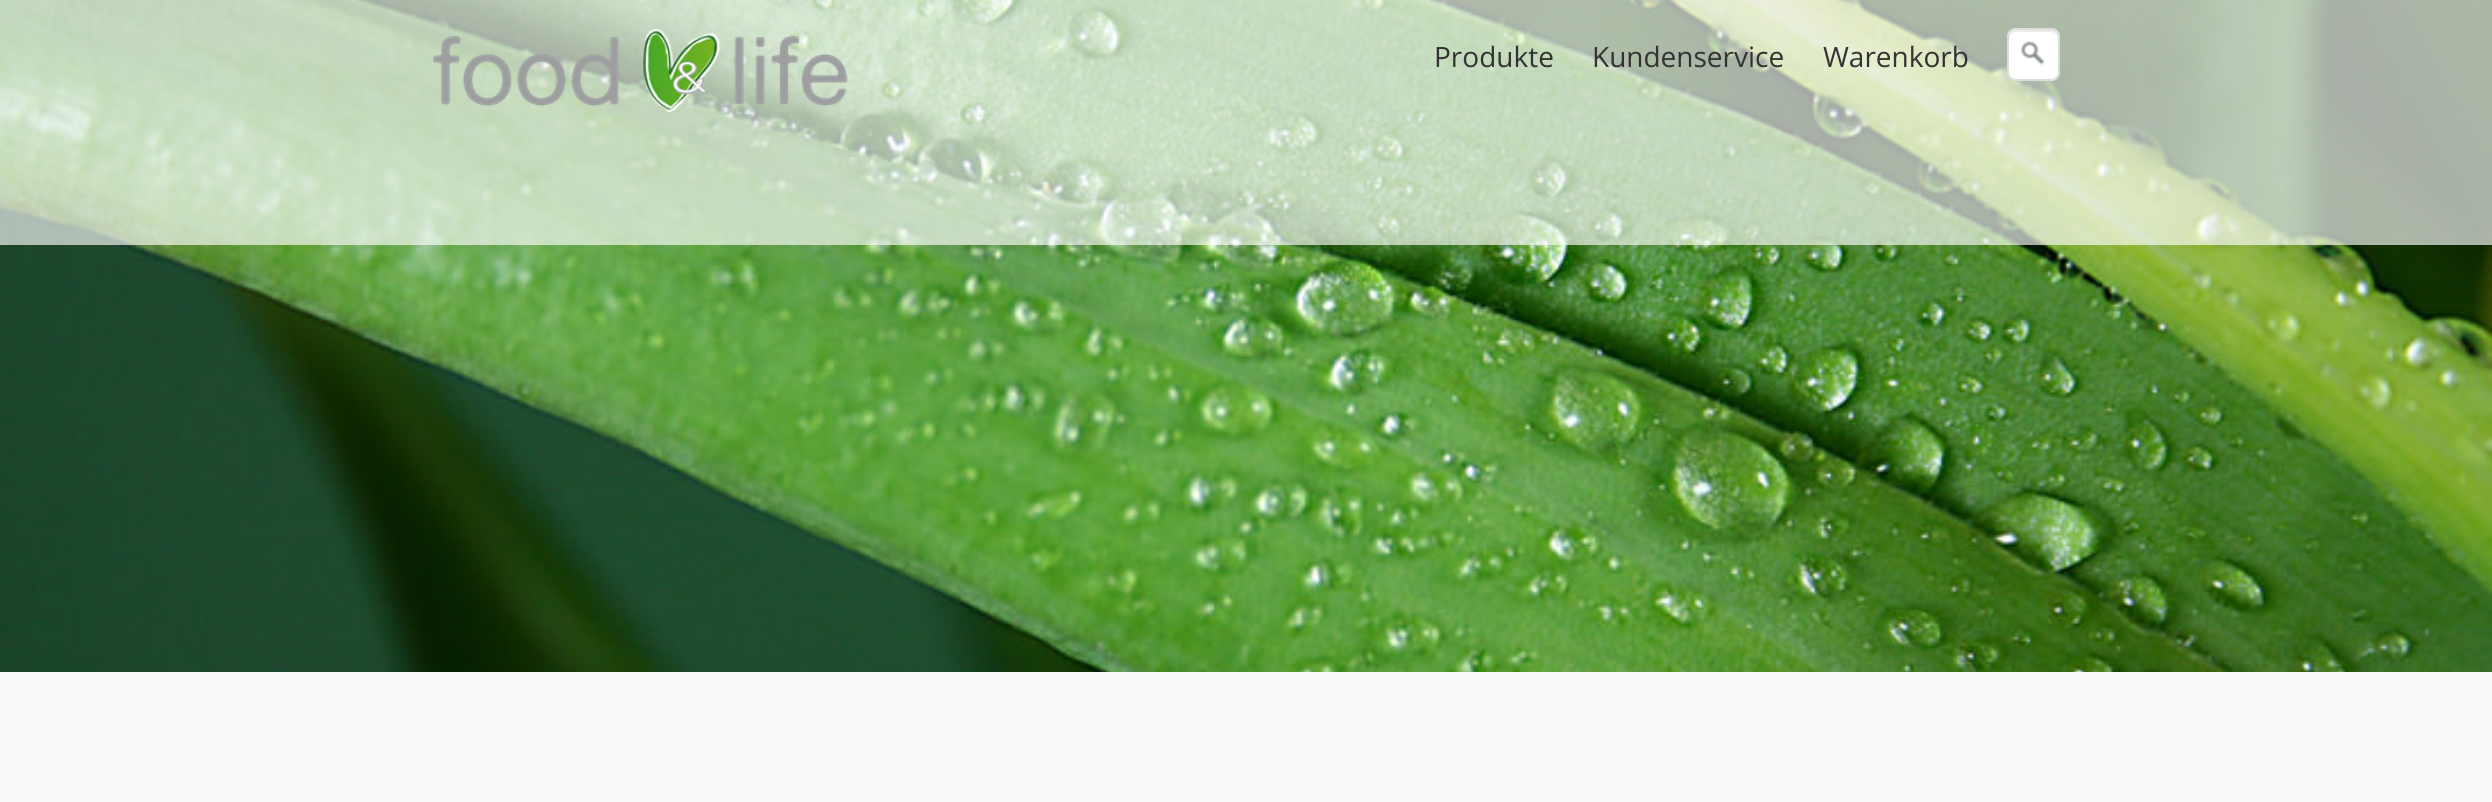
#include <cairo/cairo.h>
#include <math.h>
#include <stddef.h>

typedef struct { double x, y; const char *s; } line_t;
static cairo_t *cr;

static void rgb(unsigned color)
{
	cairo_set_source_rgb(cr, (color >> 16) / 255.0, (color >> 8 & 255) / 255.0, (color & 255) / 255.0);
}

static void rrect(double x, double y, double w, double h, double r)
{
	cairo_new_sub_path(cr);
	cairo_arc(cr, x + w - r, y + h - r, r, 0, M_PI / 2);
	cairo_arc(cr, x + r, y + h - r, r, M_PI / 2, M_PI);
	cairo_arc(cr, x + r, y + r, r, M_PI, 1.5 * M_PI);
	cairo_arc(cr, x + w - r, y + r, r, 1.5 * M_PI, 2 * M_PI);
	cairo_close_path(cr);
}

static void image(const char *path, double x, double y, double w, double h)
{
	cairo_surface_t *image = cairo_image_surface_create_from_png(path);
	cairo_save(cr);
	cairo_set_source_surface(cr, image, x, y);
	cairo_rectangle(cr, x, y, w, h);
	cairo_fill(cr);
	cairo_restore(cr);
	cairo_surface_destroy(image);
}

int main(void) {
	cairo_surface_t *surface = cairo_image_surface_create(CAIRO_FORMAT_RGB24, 2492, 802);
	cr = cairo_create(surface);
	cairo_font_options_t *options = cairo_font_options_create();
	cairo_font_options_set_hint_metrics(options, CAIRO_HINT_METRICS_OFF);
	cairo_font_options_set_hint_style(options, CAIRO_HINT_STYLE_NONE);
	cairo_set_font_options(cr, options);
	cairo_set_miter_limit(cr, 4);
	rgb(0xfafafa);
	cairo_paint(cr);
	image("img/1.png", 0, 0, 2492, 672);
	cairo_set_source_rgba(cr, 1, 1, 1, 0.65);
	cairo_rectangle(cr, 0, 0, 2492, 245);
	cairo_fill(cr);
	image("img/2.png", 433, 28, 415, 85);
	rgb(0xffffff);
	rrect(2007, 28, 53, 53, 9);
	cairo_fill(cr);
	rgb(0xececec);
	cairo_new_path(cr);
	cairo_move_to(cr, 2016, 32);
	cairo_line_to(cr, 2051, 32);
	cairo_curve_to(cr, 2055, 32, 2058, 35, 2058, 38);
	cairo_curve_to(cr, 2058, 30, 2052, 30, 2045, 30);
	cairo_line_to(cr, 2022, 30);
	cairo_curve_to(cr, 2015, 30, 2009, 30, 2009, 38);
	cairo_curve_to(cr, 2009, 35, 2012, 32, 2016, 32);
	cairo_close_path(cr);
	cairo_fill(cr);
	rrect(2008, 29, 51, 51, 8);
	rgb(0xdddddd);
	cairo_stroke(cr);
	image("img/3.png", 2021, 41, 24, 25);
	cairo_select_font_face(cr, "Open Sans", CAIRO_FONT_SLANT_NORMAL, CAIRO_FONT_WEIGHT_NORMAL);
	cairo_set_font_size(cr, 28);
	rgb(0x333333);
	{
		static const line_t items[] = {
			{1434, 67, "Produkte"},
			{1592, 67, "Kundenservice"},
			{1823, 67, "Warenkorb"},
		};
		for (size_t i = 0; i < sizeof items / sizeof *items; i++) {
			cairo_move_to(cr, items[i].x, items[i].y);
			cairo_show_text(cr, items[i].s);
		}
	}
	cairo_surface_write_to_png(surface, "page.png");
	cairo_font_options_destroy(options);
	cairo_destroy(cr);
	cairo_surface_destroy(surface);
	return 0;
}
